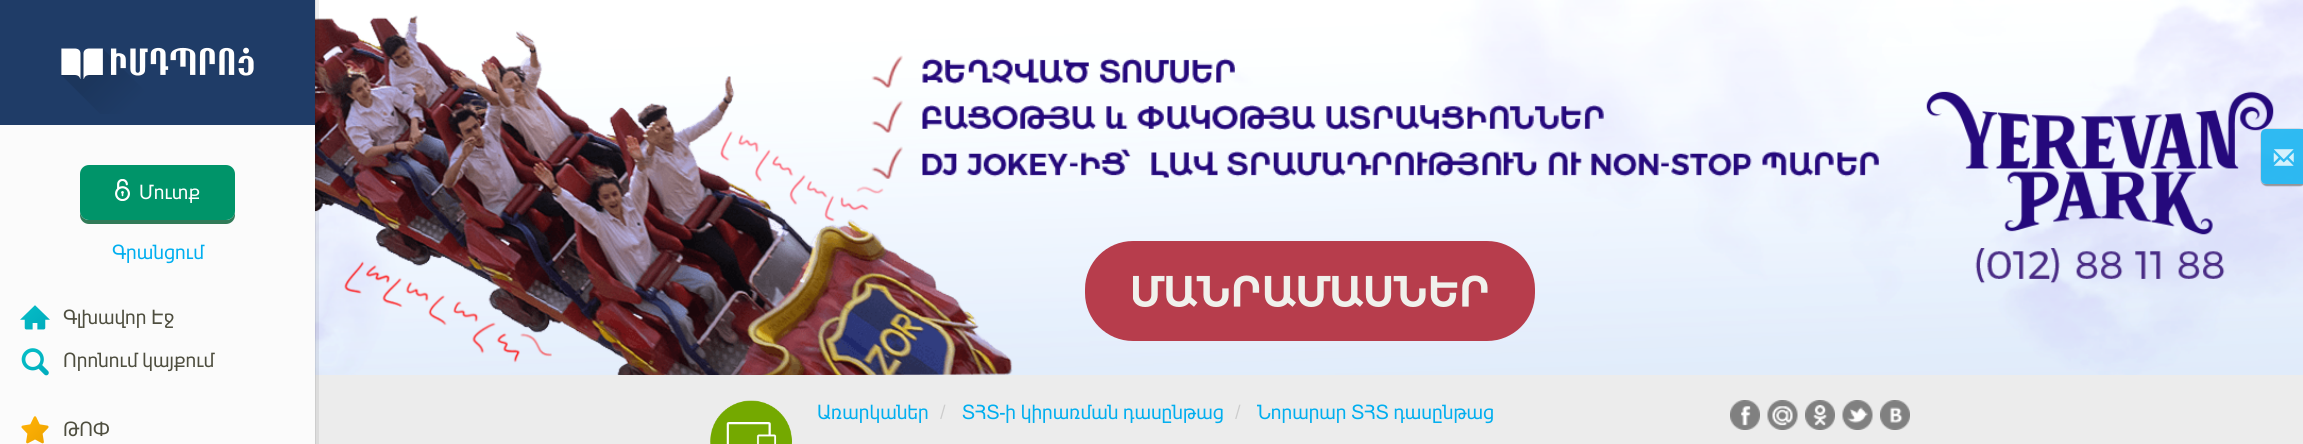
#include <cairo/cairo.h>
#include <math.h>
#include <stddef.h>

typedef struct { double x, y; const char *s; } line_t;
static cairo_t *cr;

static void rgb(unsigned color)
{
	cairo_set_source_rgb(cr, (color >> 16) / 255.0, (color >> 8 & 255) / 255.0, (color & 255) / 255.0);
}

static void rrect(double x, double y, double w, double h, double r)
{
	cairo_new_sub_path(cr);
	cairo_arc(cr, x + w - r, y + h - r, r, 0, M_PI / 2);
	cairo_arc(cr, x + r, y + h - r, r, M_PI / 2, M_PI);
	cairo_arc(cr, x + r, y + r, r, M_PI, 1.5 * M_PI);
	cairo_arc(cr, x + w - r, y + r, r, 1.5 * M_PI, 2 * M_PI);
	cairo_close_path(cr);
}

static void soft_shadow(double x, double y, double w, double h, double r, double blur, double alpha)
{
	cairo_push_group_with_content(cr, CAIRO_CONTENT_ALPHA);
	cairo_set_operator(cr, CAIRO_OPERATOR_SOURCE);
	for (int i = 15; i >= -15 && fmin(w, h) + blur * i / 3 > 0; i -= 2) {
		double e = blur * i / 6;
		cairo_set_source_rgba(cr, 0, 0, 0, alpha * erfc((i - 1) / 8.5) / 2);
		rrect(x - e, y - e, w + 2 * e, h + 2 * e, fmax(0, fmin(r + e + blur * .6, fmin(w, h) / 2 + e)));
		cairo_fill(cr);
	}
	cairo_pattern_t *soft = cairo_pop_group(cr);
	cairo_mask(cr, soft);
	cairo_pattern_destroy(soft);
}

static void image(const char *path, double x, double y, double w, double h)
{
	cairo_surface_t *image = cairo_image_surface_create_from_png(path);
	cairo_save(cr);
	cairo_set_source_surface(cr, image, x, y);
	cairo_rectangle(cr, x, y, w, h);
	cairo_fill(cr);
	cairo_restore(cr);
	cairo_surface_destroy(image);
}

int main(void) {
	cairo_surface_t *surface = cairo_image_surface_create(CAIRO_FORMAT_RGB24, 2303, 444);
	cr = cairo_create(surface);
	cairo_font_options_t *options = cairo_font_options_create();
	cairo_font_options_set_hint_metrics(options, CAIRO_HINT_METRICS_OFF);
	cairo_font_options_set_hint_style(options, CAIRO_HINT_STYLE_NONE);
	cairo_set_font_options(cr, options);
	cairo_set_miter_limit(cr, 4);
	rgb(0xececec);
	cairo_paint(cr);
	image("img/6.png", 315, 0, 1988, 375);
	image("img/12.png", 871, 100, 32, 33);
	image("img/14.png", 871, 146, 32, 33);
	image("img/8.png", 720, 131, 164, 91);
	image("img/9.png", 344, 261, 208, 102);
	image("img/10.png", 871, 55, 32, 33);
	image("img/11.png", 922, 58, 313, 27);
	image("img/13.png", 922, 105, 682, 25);
	image("img/15.png", 922, 148, 957, 30);
	image("img/7.png", 315, 15, 698, 360);
	cairo_set_source_rgba(cr, 0, 0, 0, 0.07);
	cairo_rectangle(cr, 315, 0, 4, 444);
	cairo_fill(cr);
	cairo_rectangle(cr, 315, 0, 1, 444);
	cairo_fill(cr);
	rgb(0xfbfbfb);
	cairo_rectangle(cr, 0, 125, 315, 319);
	cairo_fill(cr);
	rgb(0x1f3c67);
	cairo_rectangle(cr, 0, 0, 315, 125);
	cairo_fill(cr);
	image("img/1.png", 61, 47, 193, 67);
	rgb(0x317a58);
	cairo_new_path(cr);
	cairo_move_to(cr, 80, 211);
	cairo_line_to(cr, 80, 215);
	cairo_curve_to(cr, 80, 220, 84, 224, 89, 224);
	cairo_line_to(cr, 226, 224);
	cairo_curve_to(cr, 231, 224, 235, 220, 235, 215);
	cairo_line_to(cr, 235, 211);
	cairo_curve_to(cr, 235, 216, 231, 220, 226, 220);
	cairo_line_to(cr, 89, 220);
	cairo_curve_to(cr, 84, 220, 80, 216, 80, 211);
	cairo_close_path(cr);
	cairo_fill(cr);
	rgb(0x009469);
	rrect(80, 165, 155, 55, 9);
	cairo_fill(cr);
	image("img/2.png", 115, 179, 15, 22);
	image("img/3.png", 20, 305, 30, 25);
	image("img/4.png", 21, 348, 28, 28);
	image("img/5.png", 21, 416, 28, 28);
	image("img/16.png", 1926, 91, 348, 144);
	image("img/17.png", 1975, 248, 250, 36);
	rgb(0xb73d4c);
	rrect(1085, 241, 450, 100, 48);
	cairo_fill(cr);
	image("img/18.png", 1133, 275, 355, 32);
	cairo_save(cr);
	cairo_set_fill_rule(cr, CAIRO_FILL_RULE_EVEN_ODD);
	cairo_new_path(cr);
	cairo_move_to(cr, 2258, 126);
	cairo_line_to(cr, 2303, 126);
	cairo_line_to(cr, 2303, 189);
	cairo_line_to(cr, 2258, 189);
	cairo_close_path(cr);
	cairo_move_to(cr, 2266, 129);
	cairo_line_to(cr, 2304, 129);
	cairo_line_to(cr, 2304, 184);
	cairo_line_to(cr, 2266, 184);
	cairo_curve_to(cr, 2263, 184, 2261, 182, 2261, 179);
	cairo_line_to(cr, 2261, 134);
	cairo_curve_to(cr, 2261, 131, 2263, 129, 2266, 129);
	cairo_close_path(cr);
	cairo_clip(cr);
	rgb(0x808080);
	soft_shadow(2261, 129, 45, 57, 6, 0.5, 0.8);
	cairo_restore(cr);
	cairo_set_source_rgba(cr, 0, 0.682, 0.937, 0.8);
	cairo_new_path(cr);
	cairo_move_to(cr, 2266, 129);
	cairo_line_to(cr, 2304, 129);
	cairo_line_to(cr, 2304, 184);
	cairo_line_to(cr, 2266, 184);
	cairo_curve_to(cr, 2263, 184, 2261, 182, 2261, 179);
	cairo_line_to(cr, 2261, 134);
	cairo_curve_to(cr, 2261, 131, 2263, 129, 2266, 129);
	cairo_close_path(cr);
	cairo_fill(cr);
	image("img/19.png", 2273, 149, 21, 17);
	image("img/20.png", 710, 400, 82, 44);
	image("img/21.png", 1730, 400, 30, 30);
	image("img/22.png", 1767, 400, 31, 30);
	image("img/23.png", 1805, 400, 30, 30);
	image("img/24.png", 1842, 400, 31, 30);
	image("img/25.png", 1880, 400, 30, 30);
	cairo_select_font_face(cr, "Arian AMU", CAIRO_FONT_SLANT_NORMAL, CAIRO_FONT_WEIGHT_NORMAL);
	cairo_set_font_size(cr, 20);
	rgb(0xffffff);
	cairo_move_to(cr, 139, 199);
	cairo_show_text(cr, "Մուտք");
	rgb(0x00aeef);
	cairo_move_to(cr, 112, 259);
	cairo_show_text(cr, "Գրանցում");
	rgb(0x4e4e3f);
	{
		static const line_t items[] = {
			{63, 324, "Գլխավոր Էջ"},
			{63, 367, "Որոնում կայքում"},
			{63, 436, "ԹՈՓ"},
		};
		for (size_t i = 0; i < sizeof items / sizeof *items; i++) {
			cairo_move_to(cr, items[i].x, items[i].y);
			cairo_show_text(cr, items[i].s);
		}
	}
	rgb(0x00aeef);
	cairo_move_to(cr, 817, 419);
	cairo_show_text(cr, "Առարկաներ");
	rgb(0xcccccc);
	cairo_move_to(cr, 940, 419);
	cairo_show_text(cr, "/");
	rgb(0x00aeef);
	cairo_move_to(cr, 962, 419);
	cairo_show_text(cr, "ՏՀՏ-ի կիրառման դասընթաց");
	rgb(0xcccccc);
	cairo_move_to(cr, 1235, 419);
	cairo_show_text(cr, "/");
	rgb(0x00aeef);
	cairo_move_to(cr, 1257, 419);
	cairo_show_text(cr, "Նորարար ՏՀՏ դասընթաց");
	cairo_surface_write_to_png(surface, "page.png");
	cairo_font_options_destroy(options);
	cairo_destroy(cr);
	cairo_surface_destroy(surface);
	return 0;
}
